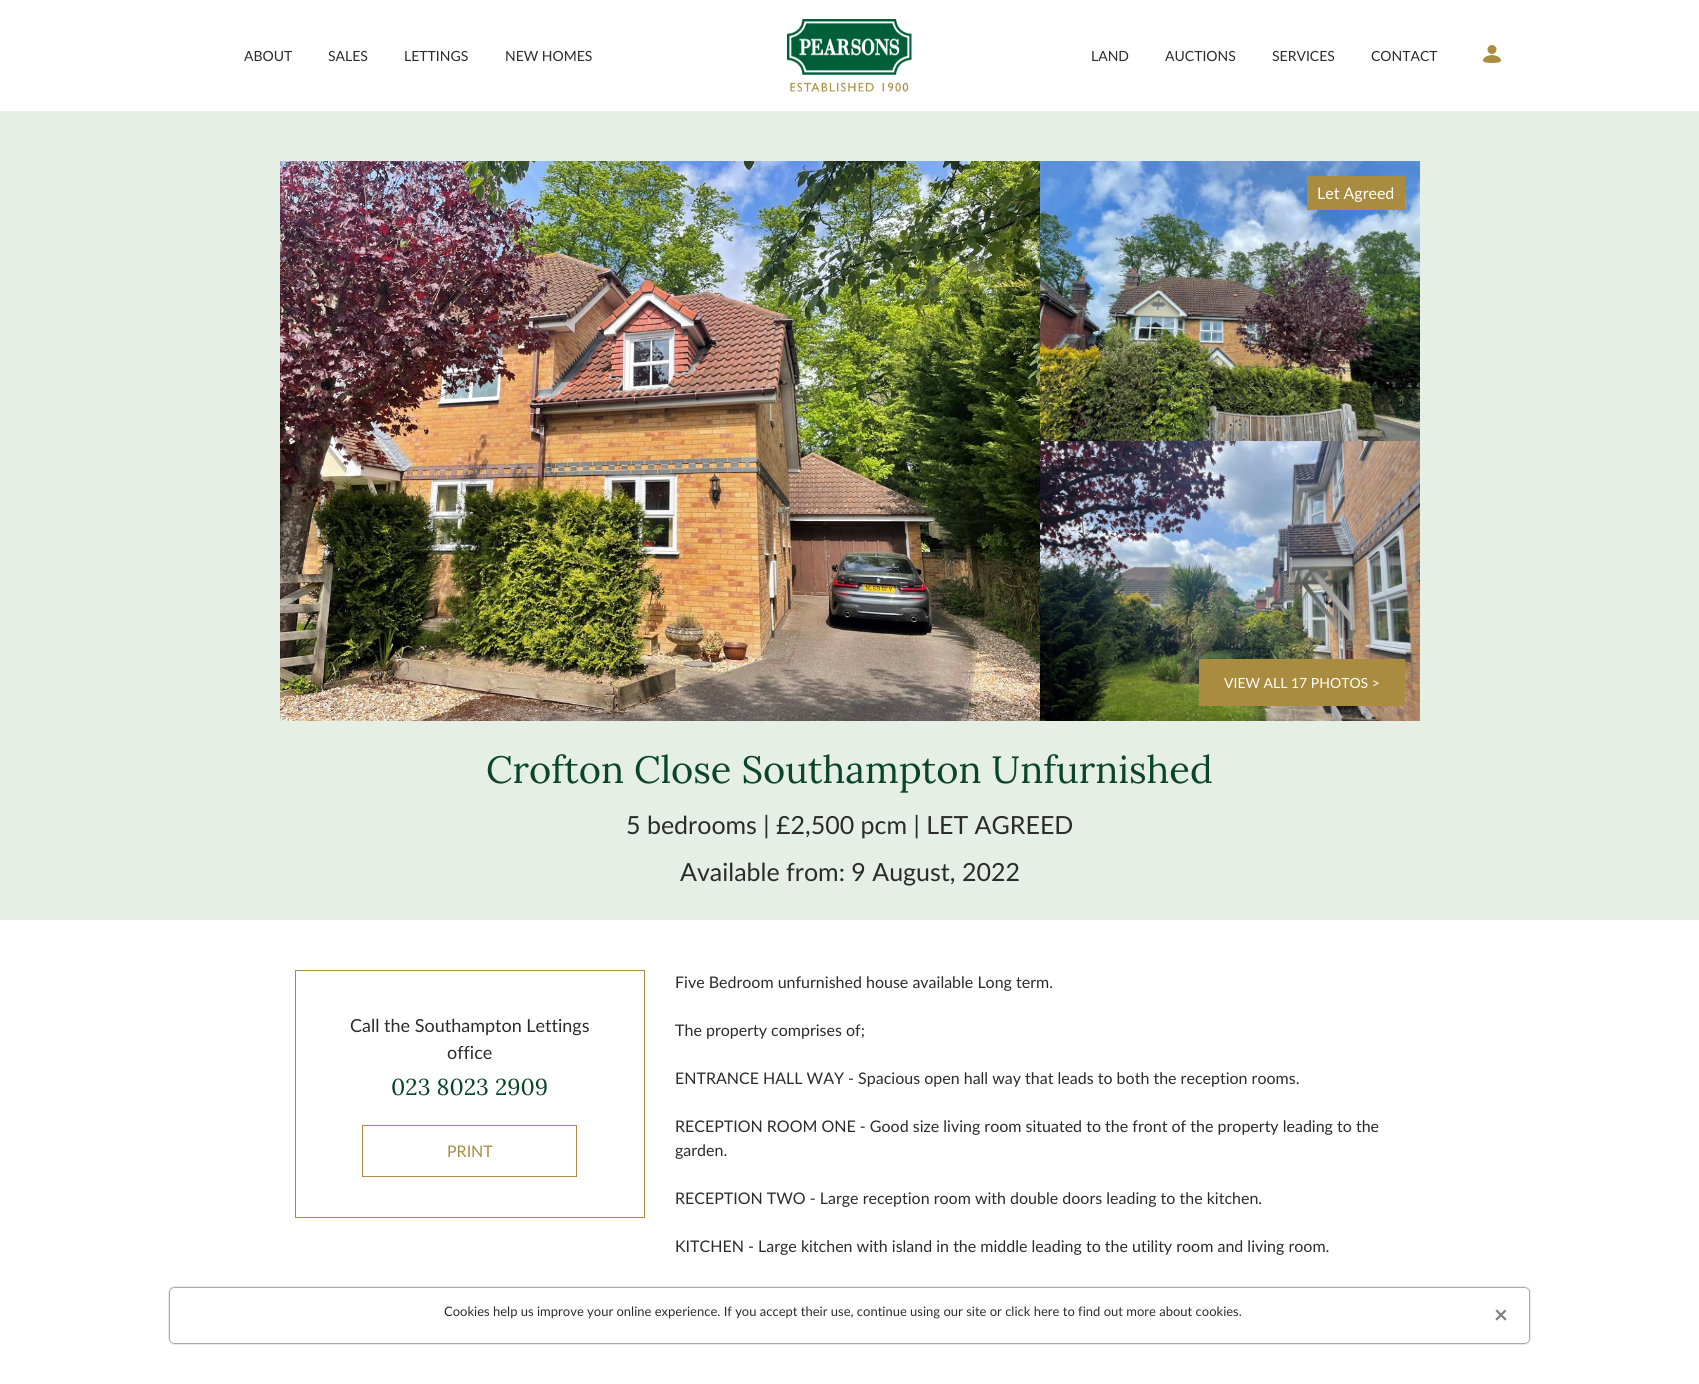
#include <cairo/cairo.h>
#include <math.h>
#include <stddef.h>

typedef struct { double x, y; const char *s; } line_t;
static cairo_t *cr;

static void rgb(unsigned color)
{
	cairo_set_source_rgb(cr, (color >> 16) / 255.0, (color >> 8 & 255) / 255.0, (color & 255) / 255.0);
}

static void rrect(double x, double y, double w, double h, double r)
{
	cairo_new_sub_path(cr);
	cairo_arc(cr, x + w - r, y + h - r, r, 0, M_PI / 2);
	cairo_arc(cr, x + r, y + h - r, r, M_PI / 2, M_PI);
	cairo_arc(cr, x + r, y + r, r, M_PI, 1.5 * M_PI);
	cairo_arc(cr, x + w - r, y + r, r, 1.5 * M_PI, 2 * M_PI);
	cairo_close_path(cr);
}

static void soft_shadow(double x, double y, double w, double h, double r, double blur, double alpha)
{
	cairo_push_group_with_content(cr, CAIRO_CONTENT_ALPHA);
	cairo_set_operator(cr, CAIRO_OPERATOR_SOURCE);
	for (int i = 15; i >= -15 && fmin(w, h) + blur * i / 3 > 0; i -= 2) {
		double e = blur * i / 6;
		cairo_set_source_rgba(cr, 0, 0, 0, alpha * erfc((i - 1) / 8.5) / 2);
		rrect(x - e, y - e, w + 2 * e, h + 2 * e, fmax(0, fmin(r + e + blur * .6, fmin(w, h) / 2 + e)));
		cairo_fill(cr);
	}
	cairo_pattern_t *soft = cairo_pop_group(cr);
	cairo_mask(cr, soft);
	cairo_pattern_destroy(soft);
}

static void image(const char *path, double x, double y, double w, double h)
{
	cairo_surface_t *image = cairo_image_surface_create_from_png(path);
	cairo_save(cr);
	cairo_set_source_surface(cr, image, x, y);
	cairo_rectangle(cr, x, y, w, h);
	cairo_fill(cr);
	cairo_restore(cr);
	cairo_surface_destroy(image);
}

int main(void) {
	cairo_surface_t *surface = cairo_image_surface_create(CAIRO_FORMAT_RGB24, 1699, 1384);
	cr = cairo_create(surface);
	cairo_font_options_t *options = cairo_font_options_create();
	cairo_font_options_set_hint_metrics(options, CAIRO_HINT_METRICS_OFF);
	cairo_font_options_set_hint_style(options, CAIRO_HINT_STYLE_NONE);
	cairo_set_font_options(cr, options);
	cairo_set_miter_limit(cr, 4);
	rgb(0xffffff);
	cairo_paint(cr);
	image("img/1.png", 787, 19, 125, 73);
	image("img/2.png", 1483, 45, 18, 18);
	rgb(0xe6efe6);
	cairo_rectangle(cr, 0, 111, 1699, 809);
	cairo_fill(cr);
	image("img/3.png", 280, 161, 760, 560);
	image("img/4.png", 1040, 161, 380, 280);
	image("img/5.png", 1040, 441, 380, 280);
	rgb(0xa98c3f);
	cairo_rectangle(cr, 1307, 176, 98, 34);
	cairo_fill(cr);
	cairo_rectangle(cr, 1199, 659, 206, 47);
	cairo_fill(cr);
	cairo_rectangle(cr, 295.5, 970.5, 349, 247);
	cairo_set_line_width(cr, 1);
	cairo_stroke(cr);
	cairo_rectangle(cr, 362.5, 1125.5, 214, 51);
	cairo_stroke(cr);
	rgb(0x000000);
	soft_shadow(170, 1288, 1359, 55, 4, 1, 1);
	rgb(0xffffff);
	rrect(170, 1288, 1359, 55, 4);
	cairo_fill(cr);
	cairo_select_font_face(cr, "Lato", CAIRO_FONT_SLANT_NORMAL, CAIRO_FONT_WEIGHT_NORMAL);
	cairo_set_font_size(cr, 14);
	rgb(0x2b2b2b);
	{
		static const line_t items[] = {
			{244, 61, "ABOUT"},
			{328, 61, "SALES"},
			{404, 61, "LETTINGS"},
			{505, 61, "NEW HOMES"},
			{1091, 61, "LAND"},
			{1165, 61, "AUCTIONS"},
			{1272, 61, "SERVICES"},
			{1371, 61, "CONTACT"},
		};
		for (size_t i = 0; i < sizeof items / sizeof *items; i++) {
			cairo_move_to(cr, items[i].x, items[i].y);
			cairo_show_text(cr, items[i].s);
		}
	}
	cairo_set_font_size(cr, 16);
	rgb(0xffffff);
	cairo_move_to(cr, 1317, 199);
	cairo_show_text(cr, "Let Agreed");
	cairo_set_font_size(cr, 14);
	cairo_move_to(cr, 1224, 688);
	cairo_show_text(cr, "VIEW ALL 17 PHOTOS >");
	cairo_select_font_face(cr, "Lora", CAIRO_FONT_SLANT_NORMAL, CAIRO_FONT_WEIGHT_NORMAL);
	cairo_set_font_size(cr, 38);
	rgb(0x0a452a);
	cairo_move_to(cr, 486, 783);
	cairo_show_text(cr, "Crofton Close Southampton Unfurnished");
	cairo_select_font_face(cr, "Lato", CAIRO_FONT_SLANT_NORMAL, CAIRO_FONT_WEIGHT_NORMAL);
	cairo_set_font_size(cr, 25);
	rgb(0x2b2b2b);
	cairo_move_to(cr, 626, 834);
	cairo_show_text(cr, "5 bedrooms | £2,500 pcm | LET AGREED");
	cairo_move_to(cr, 680, 881);
	cairo_show_text(cr, "Available from: 9 August, 2022");
	cairo_set_font_size(cr, 18);
	cairo_move_to(cr, 350, 1032);
	cairo_show_text(cr, "Call the Southampton Lettings");
	cairo_move_to(cr, 447, 1059);
	cairo_show_text(cr, "office");
	cairo_select_font_face(cr, "Lora", CAIRO_FONT_SLANT_NORMAL, CAIRO_FONT_WEIGHT_NORMAL);
	cairo_set_font_size(cr, 23);
	rgb(0x0a452a);
	cairo_move_to(cr, 391, 1095);
	cairo_show_text(cr, "023 8023 2909");
	cairo_select_font_face(cr, "Lato", CAIRO_FONT_SLANT_NORMAL, CAIRO_FONT_WEIGHT_NORMAL);
	cairo_set_font_size(cr, 16);
	rgb(0xa98c3f);
	cairo_move_to(cr, 447, 1157);
	cairo_show_text(cr, "PRINT");
	rgb(0x2b2b2b);
	{
		static const line_t items[] = {
			{675, 988, "Five Bedroom unfurnished house available Long term."},
			{675, 1036, "The property comprises of;"},
			{675, 1084, "ENTRANCE HALL WAY - Spacious open hall way that leads to both the reception rooms."},
			{675, 1132, "RECEPTION ROOM ONE - Good size living room situated to the front of the property leading to the"},
			{675, 1156, "garden."},
			{675, 1204, "RECEPTION TWO - Large reception room with double doors leading to the kitchen."},
			{675, 1252, "KITCHEN - Large kitchen with island in the middle leading to the utility room and living room."},
		};
		for (size_t i = 0; i < sizeof items / sizeof *items; i++) {
			cairo_move_to(cr, items[i].x, items[i].y);
			cairo_show_text(cr, items[i].s);
		}
	}
	cairo_set_font_size(cr, 13);
	cairo_move_to(cr, 444, 1316);
	cairo_show_text(cr, "Cookies help us improve your online experience. If you accept their use, continue using our site or click here to find out more about cookies.");
	cairo_select_font_face(cr, "Lato", CAIRO_FONT_SLANT_NORMAL, CAIRO_FONT_WEIGHT_BOLD);
	cairo_set_font_size(cr, 24);
	rgb(0x808080);
	cairo_move_to(cr, 1494, 1323);
	cairo_show_text(cr, "×");
	cairo_surface_write_to_png(surface, "page.png");
	cairo_font_options_destroy(options);
	cairo_destroy(cr);
	cairo_surface_destroy(surface);
	return 0;
}
